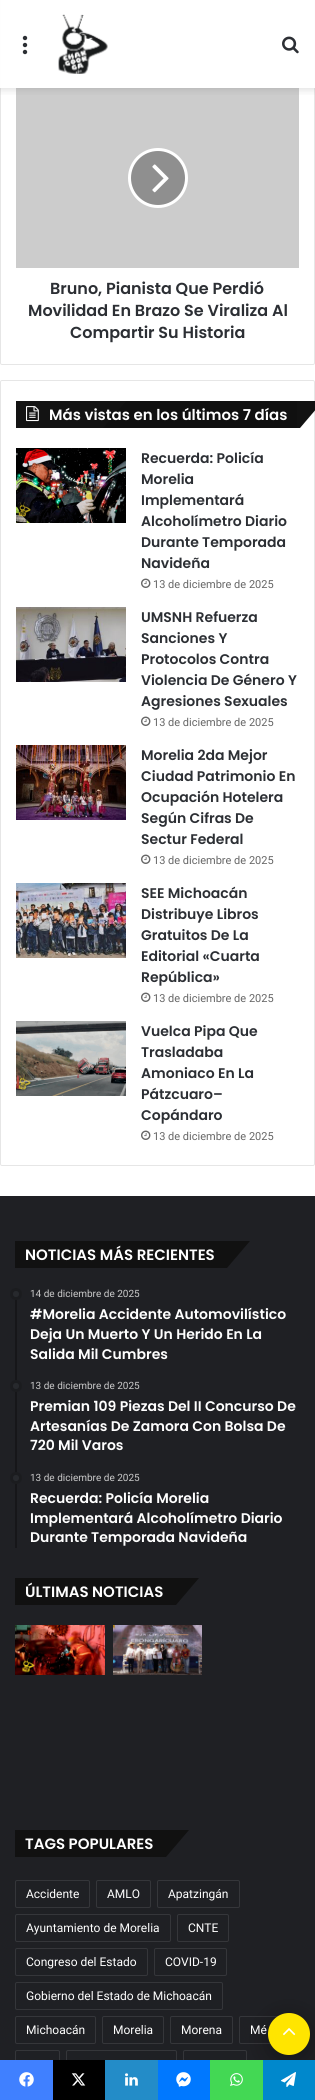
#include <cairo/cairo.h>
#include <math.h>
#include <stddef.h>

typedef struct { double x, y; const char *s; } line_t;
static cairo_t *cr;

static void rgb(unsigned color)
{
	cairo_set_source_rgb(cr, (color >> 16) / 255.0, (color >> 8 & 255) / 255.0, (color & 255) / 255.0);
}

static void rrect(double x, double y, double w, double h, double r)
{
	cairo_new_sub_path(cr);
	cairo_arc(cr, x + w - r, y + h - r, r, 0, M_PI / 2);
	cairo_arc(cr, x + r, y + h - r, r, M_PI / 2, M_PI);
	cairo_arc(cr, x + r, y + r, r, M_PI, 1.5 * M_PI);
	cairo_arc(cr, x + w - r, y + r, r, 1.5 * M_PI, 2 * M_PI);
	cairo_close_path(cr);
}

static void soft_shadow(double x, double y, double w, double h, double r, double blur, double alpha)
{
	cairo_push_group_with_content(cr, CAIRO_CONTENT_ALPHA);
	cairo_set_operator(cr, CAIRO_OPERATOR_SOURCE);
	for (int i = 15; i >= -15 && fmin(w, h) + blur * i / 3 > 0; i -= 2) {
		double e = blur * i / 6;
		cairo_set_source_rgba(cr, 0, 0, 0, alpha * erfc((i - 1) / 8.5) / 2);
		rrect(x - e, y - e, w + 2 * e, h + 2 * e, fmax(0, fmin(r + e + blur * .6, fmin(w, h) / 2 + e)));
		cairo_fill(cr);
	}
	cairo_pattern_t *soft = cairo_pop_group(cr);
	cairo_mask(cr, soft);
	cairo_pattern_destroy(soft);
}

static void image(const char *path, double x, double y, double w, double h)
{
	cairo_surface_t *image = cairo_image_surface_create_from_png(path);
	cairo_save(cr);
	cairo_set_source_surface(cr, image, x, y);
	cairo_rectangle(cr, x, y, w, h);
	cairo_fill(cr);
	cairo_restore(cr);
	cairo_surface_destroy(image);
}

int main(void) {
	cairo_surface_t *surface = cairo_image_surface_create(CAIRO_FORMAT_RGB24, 315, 2100);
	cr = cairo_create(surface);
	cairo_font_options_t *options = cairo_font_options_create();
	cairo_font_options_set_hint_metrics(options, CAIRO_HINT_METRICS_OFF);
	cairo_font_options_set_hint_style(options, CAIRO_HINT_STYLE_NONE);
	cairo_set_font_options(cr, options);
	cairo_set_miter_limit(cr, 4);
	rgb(0xffffff);
	cairo_paint(cr);
	rrect(0.5, -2.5, 314, 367, 1.5);
	rgb(0xe6e6e6);
	cairo_set_line_width(cr, 1);
	cairo_stroke(cr);
	rgb(0xcccccc);
	cairo_rectangle(cr, 16, 88, 283, 180);
	cairo_fill(cr);
	cairo_save(cr);
	cairo_rectangle(cr, 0, 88, 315, 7);
	cairo_clip(cr);
	rgb(0x636363);
	soft_shadow(0, 2, 315, 88, 0, 4, 0.2);
	cairo_restore(cr);
	cairo_set_source_rgba(cr, 1, 1, 1, 0.95);
	cairo_rectangle(cr, 0, 0, 315, 88);
	cairo_fill(cr);
	image("img/1.png", 22, 35, 6, 20);
	image("img/2.png", 58, 14, 50, 60);
	image("img/3.png", 282, 36, 17, 18);
	rgb(0x8f8f8f);
	cairo_arc(cr, 158, 178, 28.5, 0, 2 * M_PI);
	cairo_fill_preserve(cr);
	rgb(0xffffff);
	cairo_set_line_width(cr, 3);
	cairo_stroke(cr);
	image("img/4.png", 152, 164, 17, 29);
	rrect(0.5, 380.5, 314, 785, 1.5);
	rgb(0xe6e6e6);
	cairo_set_line_width(cr, 1);
	cairo_stroke(cr);
	rgb(0x131313);
	cairo_rectangle(cr, 16, 401, 281, 27);
	cairo_fill(cr);
	cairo_set_source_rgba(cr, 0.067, 0.067, 0.067, 0.99);
	cairo_new_path(cr);
	cairo_move_to(cr, 126, 401);
	cairo_line_to(cr, 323, 401);
	cairo_line_to(cr, 300, 428);
	cairo_line_to(cr, 103, 428);
	cairo_close_path(cr);
	cairo_fill(cr);
	image("img/5.png", 26, 406, 13, 16);
	image("img/6.png", 16, 448, 110, 75);
	image("img/7.png", 141, 578, 10, 10);
	image("img/8.png", 16, 607, 110, 75);
	image("img/7.png", 141, 716, 10, 10);
	image("img/9.png", 16, 745, 110, 75);
	image("img/7.png", 141, 854, 10, 10);
	image("img/10.png", 16, 883, 110, 75);
	image("img/7.png", 141, 992, 10, 10);
	image("img/11.png", 16, 1021, 110, 75);
	image("img/7.png", 141, 1130, 10, 10);
	rgb(0x1f2024);
	cairo_rectangle(cr, 0, 1196, 315, 864);
	cairo_fill(cr);
	rgb(0x111111);
	cairo_rectangle(cr, 15, 1241, 88, 27);
	cairo_fill(cr);
	cairo_new_path(cr);
	cairo_move_to(cr, 103, 1241);
	cairo_line_to(cr, 250, 1241);
	cairo_line_to(cr, 227, 1268);
	cairo_line_to(cr, 81, 1268);
	cairo_close_path(cr);
	cairo_fill(cr);
	rgb(0x161619);
	cairo_rectangle(cr, 15, 1288, 2, 260);
	cairo_fill(cr);
	rgb(0x27292d);
	cairo_arc(cr, 16, 1294, 4.5, 0, 2 * M_PI);
	cairo_fill_preserve(cr);
	rgb(0x1b1c1f);
	cairo_set_line_width(cr, 3);
	cairo_stroke(cr);
	rgb(0x27292d);
	cairo_arc(cr, 16, 1386, 4.5, 0, 2 * M_PI);
	cairo_fill_preserve(cr);
	rgb(0x1b1c1f);
	cairo_stroke(cr);
	rgb(0x27292d);
	cairo_arc(cr, 16, 1478, 4.5, 0, 2 * M_PI);
	cairo_fill_preserve(cr);
	rgb(0x1b1c1f);
	cairo_stroke(cr);
	rgb(0x111111);
	cairo_rectangle(cr, 15, 1578, 73, 27);
	cairo_fill(cr);
	cairo_new_path(cr);
	cairo_move_to(cr, 88, 1578);
	cairo_line_to(cr, 199, 1578);
	cairo_line_to(cr, 176, 1605);
	cairo_line_to(cr, 65, 1605);
	cairo_close_path(cr);
	cairo_fill(cr);
	image("img/12.png", 15, 1625, 90, 50);
	image("img/13.png", 113, 1625, 89, 50);
	cairo_rectangle(cr, 15, 1830, 70, 27);
	cairo_fill(cr);
	cairo_new_path(cr);
	cairo_move_to(cr, 85, 1830);
	cairo_line_to(cr, 189, 1830);
	cairo_line_to(cr, 166, 1857);
	cairo_line_to(cr, 62, 1857);
	cairo_close_path(cr);
	cairo_fill(cr);
	rrect(15.5, 1880.5, 74, 27, 1.5);
	rgb(0x35363a);
	cairo_set_line_width(cr, 1);
	cairo_stroke(cr);
	rrect(96.5, 1880.5, 54, 27, 1.5);
	cairo_stroke(cr);
	rrect(157.5, 1880.5, 82, 27, 1.5);
	cairo_stroke(cr);
	rrect(15.5, 1914.5, 155, 27, 1.5);
	cairo_stroke(cr);
	rrect(177.5, 1914.5, 51, 27, 1.5);
	cairo_stroke(cr);
	rrect(15.5, 1948.5, 132, 27, 1.5);
	cairo_stroke(cr);
	rrect(154.5, 1948.5, 72, 27, 1.5);
	cairo_stroke(cr);
	rrect(15.5, 1982.5, 207, 27, 1.5);
	cairo_stroke(cr);
	rrect(15.5, 2016.5, 80, 27, 1.5);
	cairo_stroke(cr);
	rrect(102.5, 2016.5, 61, 27, 1.5);
	cairo_stroke(cr);
	rrect(170.5, 2016.5, 62, 27, 1.5);
	cairo_stroke(cr);
	rrect(239.5, 2016.5, 60, 27, 1.5);
	cairo_stroke(cr);
	rrect(15.5, 2050.5, 44, 27, 1.5);
	cairo_stroke(cr);
	rrect(66.5, 2050.5, 110, 27, 1.5);
	cairo_stroke(cr);
	rrect(183.5, 2050.5, 63, 27, 1.5);
	cairo_stroke(cr);
	rgb(0x000000);
	soft_shadow(268, 2018, 42, 42, 21, 12.5, 0.3);
	rgb(0xffe500);
	cairo_arc(cr, 289, 2034, 21, 0, 2 * M_PI);
	cairo_fill(cr);
	image("img/14.png", 283, 2028, 13, 8);
	rgb(0x4080ff);
	cairo_rectangle(cr, 0, 2060, 53, 40);
	cairo_fill(cr);
	image("img/15.png", 19, 2072, 15, 15);
	rgb(0x000000);
	cairo_rectangle(cr, 53, 2060, 52, 40);
	cairo_fill(cr);
	image("img/16.png", 71, 2073, 15, 13);
	rgb(0x238cc8);
	cairo_rectangle(cr, 105, 2060, 53, 40);
	cairo_fill(cr);
	image("img/17.png", 125, 2073, 13, 13);
	rgb(0x0078ff);
	cairo_rectangle(cr, 158, 2060, 52, 40);
	cairo_fill(cr);
	image("img/18.png", 176, 2072, 15, 15);
	rgb(0x43d854);
	cairo_rectangle(cr, 210, 2060, 53, 40);
	cairo_fill(cr);
	image("img/19.png", 230, 2073, 13, 13);
	rgb(0x0088cc);
	cairo_rectangle(cr, 263, 2060, 52, 40);
	cairo_fill(cr);
	image("img/20.png", 281, 2072, 15, 15);
	cairo_select_font_face(cr, "Poppins SemiBold", CAIRO_FONT_SLANT_NORMAL, CAIRO_FONT_WEIGHT_NORMAL);
	cairo_set_font_size(cr, 16);
	rgb(0x2c2f34);
	{
		static const line_t items[] = {
			{50, 294, "Bruno, Pianista Que Perdió"},
			{28, 316, "Movilidad En Brazo Se Viraliza Al"},
			{70, 338, "Compartir Su Historia"},
		};
		for (size_t i = 0; i < sizeof items / sizeof *items; i++) {
			cairo_move_to(cr, items[i].x, items[i].y);
			cairo_show_text(cr, items[i].s);
		}
	}
	cairo_set_font_size(cr, 15);
	rgb(0xffffff);
	cairo_move_to(cr, 49, 420);
	cairo_show_text(cr, "Más vistas en los últimos 7 días");
	cairo_set_font_size(cr, 14);
	rgb(0x2c2f34);
	{
		static const line_t items[] = {
			{141, 463, "Recuerda: Policía"},
			{141, 484, "Morelia"},
			{141, 505, "Implementará"},
			{141, 526, "Alcoholímetro Diario"},
			{141, 547, "Durante Temporada"},
			{141, 568, "Navideña"},
		};
		for (size_t i = 0; i < sizeof items / sizeof *items; i++) {
			cairo_move_to(cr, items[i].x, items[i].y);
			cairo_show_text(cr, items[i].s);
		}
	}
	cairo_select_font_face(cr, "Roboto", CAIRO_FONT_SLANT_NORMAL, CAIRO_FONT_WEIGHT_NORMAL);
	cairo_set_font_size(cr, 11);
	rgb(0x666666);
	cairo_move_to(cr, 153, 588);
	cairo_show_text(cr, "13 de diciembre de 2025");
	cairo_select_font_face(cr, "Poppins SemiBold", CAIRO_FONT_SLANT_NORMAL, CAIRO_FONT_WEIGHT_NORMAL);
	cairo_set_font_size(cr, 14);
	rgb(0x2c2f34);
	{
		static const line_t items[] = {
			{141, 622, "UMSNH Refuerza"},
			{141, 643, "Sanciones Y"},
			{141, 664, "Protocolos Contra"},
			{141, 685, "Violencia De Género Y"},
			{141, 706, "Agresiones Sexuales"},
		};
		for (size_t i = 0; i < sizeof items / sizeof *items; i++) {
			cairo_move_to(cr, items[i].x, items[i].y);
			cairo_show_text(cr, items[i].s);
		}
	}
	cairo_select_font_face(cr, "Roboto", CAIRO_FONT_SLANT_NORMAL, CAIRO_FONT_WEIGHT_NORMAL);
	cairo_set_font_size(cr, 11);
	rgb(0x666666);
	cairo_move_to(cr, 153, 726);
	cairo_show_text(cr, "13 de diciembre de 2025");
	cairo_select_font_face(cr, "Poppins SemiBold", CAIRO_FONT_SLANT_NORMAL, CAIRO_FONT_WEIGHT_NORMAL);
	cairo_set_font_size(cr, 14);
	rgb(0x2c2f34);
	{
		static const line_t items[] = {
			{141, 760, "Morelia 2da Mejor"},
			{141, 781, "Ciudad Patrimonio En"},
			{141, 802, "Ocupación Hotelera"},
			{141, 823, "Según Cifras De"},
			{141, 844, "Sectur Federal"},
		};
		for (size_t i = 0; i < sizeof items / sizeof *items; i++) {
			cairo_move_to(cr, items[i].x, items[i].y);
			cairo_show_text(cr, items[i].s);
		}
	}
	cairo_select_font_face(cr, "Roboto", CAIRO_FONT_SLANT_NORMAL, CAIRO_FONT_WEIGHT_NORMAL);
	cairo_set_font_size(cr, 11);
	rgb(0x666666);
	cairo_move_to(cr, 153, 864);
	cairo_show_text(cr, "13 de diciembre de 2025");
	cairo_select_font_face(cr, "Poppins SemiBold", CAIRO_FONT_SLANT_NORMAL, CAIRO_FONT_WEIGHT_NORMAL);
	cairo_set_font_size(cr, 14);
	rgb(0x2c2f34);
	{
		static const line_t items[] = {
			{141, 898, "SEE Michoacán"},
			{141, 919, "Distribuye Libros"},
			{141, 940, "Gratuitos De La"},
			{141, 961, "Editorial «Cuarta"},
			{141, 982, "República»"},
		};
		for (size_t i = 0; i < sizeof items / sizeof *items; i++) {
			cairo_move_to(cr, items[i].x, items[i].y);
			cairo_show_text(cr, items[i].s);
		}
	}
	cairo_select_font_face(cr, "Roboto", CAIRO_FONT_SLANT_NORMAL, CAIRO_FONT_WEIGHT_NORMAL);
	cairo_set_font_size(cr, 11);
	rgb(0x666666);
	cairo_move_to(cr, 153, 1002);
	cairo_show_text(cr, "13 de diciembre de 2025");
	cairo_select_font_face(cr, "Poppins SemiBold", CAIRO_FONT_SLANT_NORMAL, CAIRO_FONT_WEIGHT_NORMAL);
	cairo_set_font_size(cr, 14);
	rgb(0x2c2f34);
	{
		static const line_t items[] = {
			{141, 1036, "Vuelca Pipa Que"},
			{141, 1057, "Trasladaba"},
			{141, 1078, "Amoniaco En La"},
			{141, 1099, "Pátzcuaro–"},
			{141, 1120, "Copándaro"},
		};
		for (size_t i = 0; i < sizeof items / sizeof *items; i++) {
			cairo_move_to(cr, items[i].x, items[i].y);
			cairo_show_text(cr, items[i].s);
		}
	}
	cairo_select_font_face(cr, "Roboto", CAIRO_FONT_SLANT_NORMAL, CAIRO_FONT_WEIGHT_NORMAL);
	cairo_set_font_size(cr, 11);
	rgb(0x666666);
	cairo_move_to(cr, 153, 1140);
	cairo_show_text(cr, "13 de diciembre de 2025");
	cairo_select_font_face(cr, "Poppins SemiBold", CAIRO_FONT_SLANT_NORMAL, CAIRO_FONT_WEIGHT_NORMAL);
	cairo_set_font_size(cr, 15);
	rgb(0xffffff);
	cairo_move_to(cr, 25, 1260);
	cairo_show_text(cr, "NOTICIAS MÁS RECIENTES");
	cairo_select_font_face(cr, "Roboto", CAIRO_FONT_SLANT_NORMAL, CAIRO_FONT_WEIGHT_NORMAL);
	cairo_set_font_size(cr, 10);
	rgb(0xcacaca);
	cairo_move_to(cr, 30, 1297);
	cairo_show_text(cr, "14 de diciembre de 2025");
	cairo_select_font_face(cr, "Poppins SemiBold", CAIRO_FONT_SLANT_NORMAL, CAIRO_FONT_WEIGHT_NORMAL);
	cairo_set_font_size(cr, 14);
	rgb(0xffffff);
	{
		static const line_t items[] = {
			{30, 1319, "#Morelia Accidente Automovilístico"},
			{30, 1339, "Deja Un Muerto Y Un Herido En La"},
			{30, 1359, "Salida Mil Cumbres"},
		};
		for (size_t i = 0; i < sizeof items / sizeof *items; i++) {
			cairo_move_to(cr, items[i].x, items[i].y);
			cairo_show_text(cr, items[i].s);
		}
	}
	cairo_select_font_face(cr, "Roboto", CAIRO_FONT_SLANT_NORMAL, CAIRO_FONT_WEIGHT_NORMAL);
	cairo_set_font_size(cr, 10);
	rgb(0xcacaca);
	cairo_move_to(cr, 30, 1389);
	cairo_show_text(cr, "13 de diciembre de 2025");
	cairo_select_font_face(cr, "Poppins SemiBold", CAIRO_FONT_SLANT_NORMAL, CAIRO_FONT_WEIGHT_NORMAL);
	cairo_set_font_size(cr, 14);
	rgb(0xffffff);
	{
		static const line_t items[] = {
			{30, 1411, "Premian 109 Piezas Del II Concurso De"},
			{30, 1431, "Artesanías De Zamora Con Bolsa De"},
			{30, 1450, "720 Mil Varos"},
		};
		for (size_t i = 0; i < sizeof items / sizeof *items; i++) {
			cairo_move_to(cr, items[i].x, items[i].y);
			cairo_show_text(cr, items[i].s);
		}
	}
	cairo_select_font_face(cr, "Roboto", CAIRO_FONT_SLANT_NORMAL, CAIRO_FONT_WEIGHT_NORMAL);
	cairo_set_font_size(cr, 10);
	rgb(0xcacaca);
	cairo_move_to(cr, 30, 1481);
	cairo_show_text(cr, "13 de diciembre de 2025");
	cairo_select_font_face(cr, "Poppins SemiBold", CAIRO_FONT_SLANT_NORMAL, CAIRO_FONT_WEIGHT_NORMAL);
	cairo_set_font_size(cr, 14);
	rgb(0xffffff);
	{
		static const line_t items[] = {
			{30, 1503, "Recuerda: Policía Morelia"},
			{30, 1523, "Implementará Alcoholímetro Diario"},
			{30, 1542, "Durante Temporada Navideña"},
		};
		for (size_t i = 0; i < sizeof items / sizeof *items; i++) {
			cairo_move_to(cr, items[i].x, items[i].y);
			cairo_show_text(cr, items[i].s);
		}
	}
	cairo_set_font_size(cr, 15);
	cairo_move_to(cr, 25, 1597);
	cairo_show_text(cr, "ÚLTIMAS NOTICIAS");
	cairo_move_to(cr, 25, 1849);
	cairo_show_text(cr, "TAGS POPULARES");
	cairo_select_font_face(cr, "Roboto", CAIRO_FONT_SLANT_NORMAL, CAIRO_FONT_WEIGHT_NORMAL);
	cairo_set_font_size(cr, 12);
	{
		static const line_t items[] = {
			{26, 1898, "Accidente"},
			{107, 1898, "AMLO"},
			{168, 1898, "Apatzingán"},
			{26, 1932, "Ayuntamiento de Morelia"},
			{188, 1932, "CNTE"},
			{26, 1966, "Congreso del Estado"},
			{165, 1966, "COVID-19"},
			{26, 2000, "Gobierno del Estado de Michoacán"},
			{26, 2034, "Michoacán"},
			{113, 2034, "Morelia"},
			{181, 2034, "Morena"},
			{250, 2034, "Mé"},
		};
		for (size_t i = 0; i < sizeof items / sizeof *items; i++) {
			cairo_move_to(cr, items[i].x, items[i].y);
			cairo_show_text(cr, items[i].s);
		}
	}
	cairo_surface_write_to_png(surface, "page.png");
	cairo_font_options_destroy(options);
	cairo_destroy(cr);
	cairo_surface_destroy(surface);
	return 0;
}
